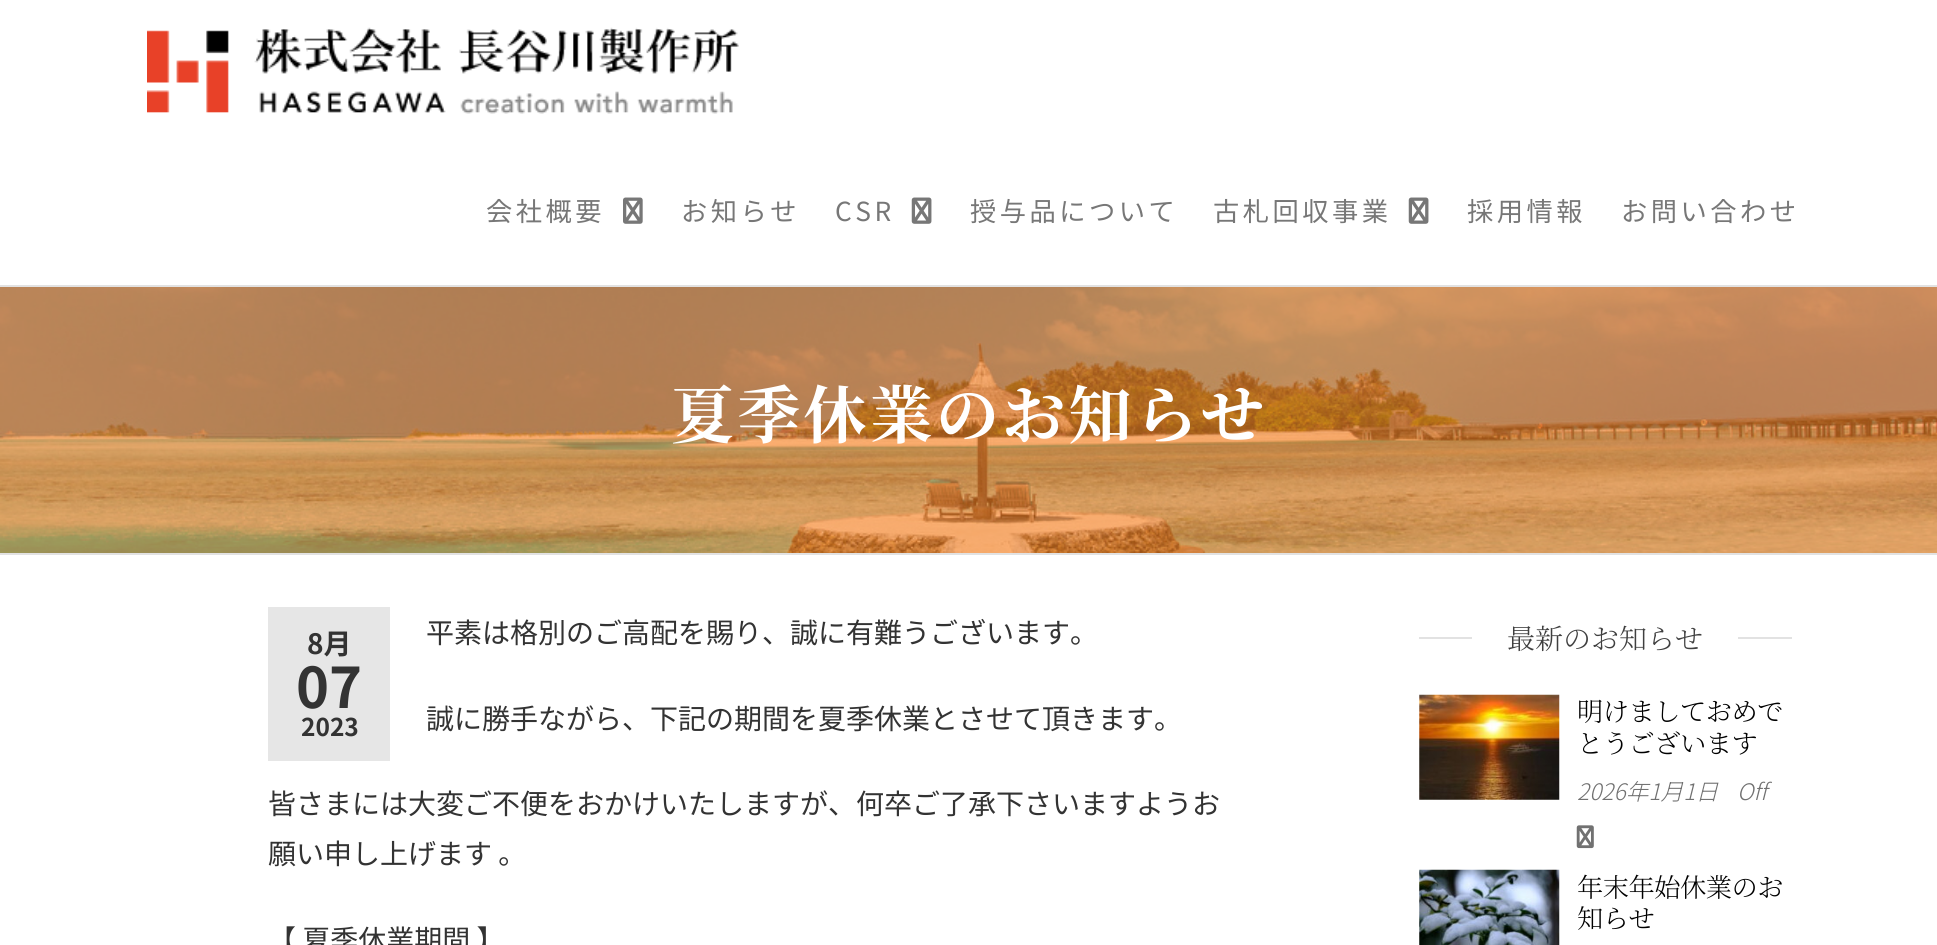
#include <cairo/cairo.h>
#include <math.h>
#include <stddef.h>

typedef struct { double x, y; const char *s; } line_t;
typedef struct { double x, y, w, h; unsigned color; } box_t;
static cairo_t *cr;

static void rgb(unsigned color)
{
	cairo_set_source_rgb(cr, (color >> 16) / 255.0, (color >> 8 & 255) / 255.0, (color & 255) / 255.0);
}

static void tracked(double x, double y, const char *s, double letter, double word)
{
	cairo_move_to(cr, x, y);
	while (*s) {
		char ch[5] = {0};
		int n = 0;
		do ch[n++] = *s++; while ((*s & 0xC0) == 0x80);
		cairo_show_text(cr, ch);
		cairo_rel_move_to(cr, letter + word * (*ch == ' '), 0);
	}
}

static void image(const char *path, double x, double y, double w, double h)
{
	cairo_surface_t *image = cairo_image_surface_create_from_png(path);
	cairo_save(cr);
	cairo_set_source_surface(cr, image, x, y);
	cairo_rectangle(cr, x, y, w, h);
	cairo_fill(cr);
	cairo_restore(cr);
	cairo_surface_destroy(image);
}

int main(void) {
	cairo_surface_t *surface = cairo_image_surface_create(CAIRO_FORMAT_RGB24, 1937, 945);
	cr = cairo_create(surface);
	cairo_font_options_t *options = cairo_font_options_create();
	cairo_font_options_set_hint_metrics(options, CAIRO_HINT_METRICS_OFF);
	cairo_font_options_set_hint_style(options, CAIRO_HINT_STYLE_NONE);
	cairo_set_font_options(cr, options);
	cairo_set_miter_limit(cr, 4);
	rgb(0xffffff);
	cairo_paint(cr);
	rgb(0xe2e2e2);
	cairo_rectangle(cr, 0, 285, 1937, 2);
	cairo_fill(cr);
	image("img/1.png", 147, 27, 592, 87);
	image("img/2.png", 623, 197, 20, 27);
	image("img/3.png", 911, 197, 21, 27);
	image("img/3.png", 1408, 197, 21, 27);
	image("img/4.png", 0, 287, 1937, 266);
	{
		static const box_t items[] = {
			{0, 553, 1937, 2, 0xe2e2e2},
			{268, 607, 122, 154, 0xe6e6e6},
			{1419, 637, 373, 2, 0xe2e2e2},
			{1472, 637, 266, 2, 0xffffff},
		};
		for (size_t i = 0; i < sizeof items / sizeof *items; i++) {
			rgb(items[i].color);
			cairo_rectangle(cr, items[i].x, items[i].y, items[i].w, items[i].h);
			cairo_fill(cr);
		}
	}
	image("img/5.png", 1419, 694, 141, 106);
	image("img/6.png", 1576, 825, 18, 24);
	image("img/7.png", 1419, 869, 141, 76);
	cairo_select_font_face(cr, "Noto Sans JP", CAIRO_FONT_SLANT_NORMAL, CAIRO_FONT_WEIGHT_NORMAL);
	cairo_set_font_size(cr, 26.25);
	rgb(0x777777);
	{
		static const line_t items[] = {
			{486, 221, "会社概要"},
			{681, 221, "お知らせ"},
			{835, 221, "CSR"},
			{970, 221, "授与品について"},
			{1213, 221, "古札回収事業"},
			{1467, 221, "採用情報"},
			{1621, 221, "お問い合わせ"},
		};
		for (size_t i = 0; i < sizeof items / sizeof *items; i++) {
			tracked(items[i].x, items[i].y, items[i].s, 3.5, 0);
		}
	}
	cairo_select_font_face(cr, "Noto Serif JP", CAIRO_FONT_SLANT_NORMAL, CAIRO_FONT_WEIGHT_BOLD);
	cairo_set_font_size(cr, 63);
	rgb(0xffffff);
	tracked(671, 438, "夏季休業のお知らせ", 3.25, 0);
	cairo_select_font_face(cr, "Noto Sans JP", CAIRO_FONT_SLANT_NORMAL, CAIRO_FONT_WEIGHT_BOLD);
	cairo_set_font_size(cr, 28);
	rgb(0x333333);
	cairo_move_to(cr, 307, 654);
	cairo_show_text(cr, "8月");
	cairo_set_font_size(cr, 56);
	cairo_move_to(cr, 296, 708);
	cairo_show_text(cr, "07");
	cairo_set_font_size(cr, 24.5);
	cairo_move_to(cr, 301, 736);
	cairo_show_text(cr, "2023");
	cairo_select_font_face(cr, "Noto Sans JP", CAIRO_FONT_SLANT_NORMAL, CAIRO_FONT_WEIGHT_NORMAL);
	cairo_set_font_size(cr, 28);
	{
		static const line_t items[] = {
			{426, 643, "平素は格別のご高配を賜り、誠に有難うございます。"},
			{426, 729, "誠に勝手ながら、下記の期間を夏季休業とさせて頂きます。"},
			{268, 814, "皆さまには大変ご不便をおかけいたしますが、何卒ご了承下さいますようお"},
			{268, 864, "願い申し上げます 。"},
			{268, 950, "【 夏季休業期間 】"},
		};
		for (size_t i = 0; i < sizeof items / sizeof *items; i++) {
			cairo_move_to(cr, items[i].x, items[i].y);
			cairo_show_text(cr, items[i].s);
		}
	}
	cairo_select_font_face(cr, "Noto Serif JP Light", CAIRO_FONT_SLANT_NORMAL, CAIRO_FONT_WEIGHT_NORMAL);
	rgb(0x404040);
	cairo_move_to(cr, 1507, 649);
	cairo_show_text(cr, "最新のお知らせ");
	cairo_set_font_size(cr, 26.25);
	rgb(0x000000);
	tracked(1577, 721, "明けましておめで", -0.5, 0);
	tracked(1577, 753, "とうございます", -0.5, 0);
	cairo_select_font_face(cr, "Noto Sans JP Light", CAIRO_FONT_SLANT_ITALIC, CAIRO_FONT_WEIGHT_NORMAL);
	cairo_set_font_size(cr, 22.75);
	rgb(0x707070);
	cairo_move_to(cr, 1577, 800);
	cairo_show_text(cr, "2026年1月1日");
	cairo_move_to(cr, 1737, 800);
	cairo_show_text(cr, "Off");
	cairo_select_font_face(cr, "Noto Serif JP Light", CAIRO_FONT_SLANT_NORMAL, CAIRO_FONT_WEIGHT_NORMAL);
	cairo_set_font_size(cr, 26.25);
	rgb(0x000000);
	tracked(1577, 897, "年末年始休業のお", -0.5, 0);
	tracked(1577, 928, "知らせ", -0.5, 0);
	cairo_surface_write_to_png(surface, "page.png");
	cairo_font_options_destroy(options);
	cairo_destroy(cr);
	cairo_surface_destroy(surface);
	return 0;
}
